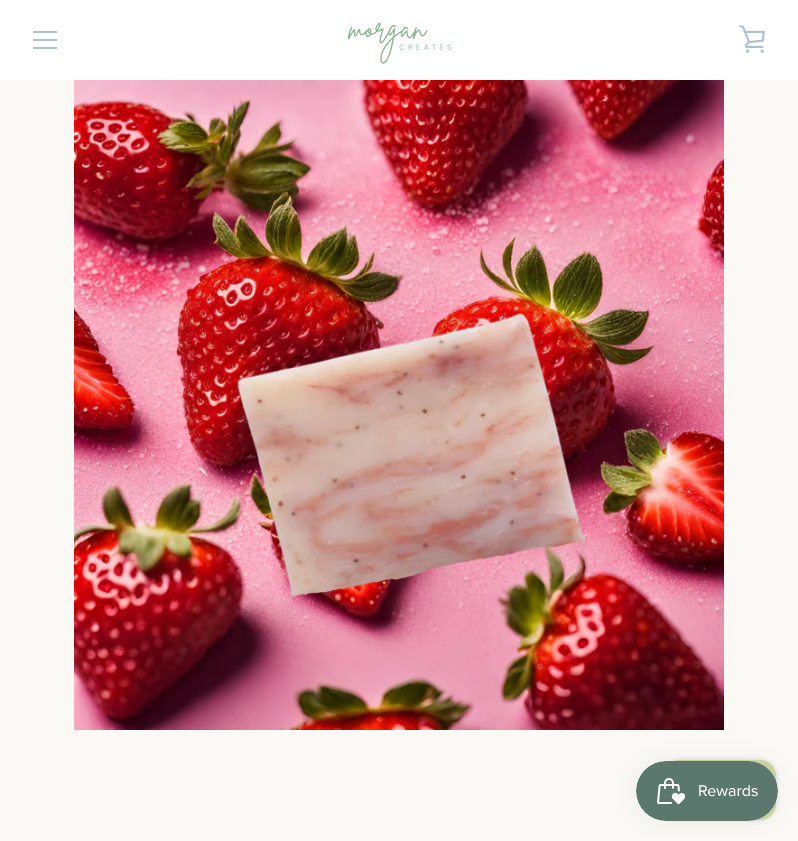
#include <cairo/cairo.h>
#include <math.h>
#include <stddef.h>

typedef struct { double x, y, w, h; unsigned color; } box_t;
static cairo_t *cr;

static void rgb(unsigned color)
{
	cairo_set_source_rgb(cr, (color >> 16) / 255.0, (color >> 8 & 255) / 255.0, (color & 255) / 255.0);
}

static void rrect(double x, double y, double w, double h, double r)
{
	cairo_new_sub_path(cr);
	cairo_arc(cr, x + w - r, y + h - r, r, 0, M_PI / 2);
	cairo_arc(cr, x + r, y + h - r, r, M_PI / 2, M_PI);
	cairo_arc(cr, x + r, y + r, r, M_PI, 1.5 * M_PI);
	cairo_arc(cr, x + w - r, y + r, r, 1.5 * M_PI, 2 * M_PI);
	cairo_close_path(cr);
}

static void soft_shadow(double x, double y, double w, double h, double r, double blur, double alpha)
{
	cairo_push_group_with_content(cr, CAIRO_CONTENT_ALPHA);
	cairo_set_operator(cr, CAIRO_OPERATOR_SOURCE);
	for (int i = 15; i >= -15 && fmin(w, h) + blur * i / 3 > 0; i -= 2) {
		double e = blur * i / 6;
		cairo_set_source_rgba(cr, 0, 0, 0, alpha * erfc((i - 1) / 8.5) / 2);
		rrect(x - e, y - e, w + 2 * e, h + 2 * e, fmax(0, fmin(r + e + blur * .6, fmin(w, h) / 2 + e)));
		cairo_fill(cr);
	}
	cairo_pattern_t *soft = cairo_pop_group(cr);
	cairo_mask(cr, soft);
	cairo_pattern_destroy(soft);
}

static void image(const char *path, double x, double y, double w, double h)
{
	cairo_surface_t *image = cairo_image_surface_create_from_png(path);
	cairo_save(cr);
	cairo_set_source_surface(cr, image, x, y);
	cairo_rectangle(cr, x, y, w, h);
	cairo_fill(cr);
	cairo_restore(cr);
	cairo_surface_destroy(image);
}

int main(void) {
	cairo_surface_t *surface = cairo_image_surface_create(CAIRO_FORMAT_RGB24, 798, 841);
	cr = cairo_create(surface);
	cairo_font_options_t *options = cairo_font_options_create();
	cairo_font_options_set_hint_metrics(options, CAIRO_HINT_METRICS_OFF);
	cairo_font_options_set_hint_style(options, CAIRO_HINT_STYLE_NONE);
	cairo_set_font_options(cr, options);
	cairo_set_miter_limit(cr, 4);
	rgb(0xfaf9f6);
	cairo_paint(cr);
	{
		static const box_t items[] = {
			{0, 0, 798, 80, 0xffffff},
			{33, 31, 24, 2, 0xadc2d1},
			{33, 39, 24, 2, 0xadc2d1},
			{33, 47, 24, 2, 0xadc2d1},
		};
		for (size_t i = 0; i < sizeof items / sizeof *items; i++) {
			rgb(items[i].color);
			cairo_rectangle(cr, items[i].x, items[i].y, items[i].w, items[i].h);
			cairo_fill(cr);
		}
	}
	image("img/1.png", 347, 22, 105, 42);
	image("img/2.png", 739, 25, 26, 28);
	image("img/3.png", 74, 80, 650, 650);
	rgb(0x000000);
	soft_shadow(663, 760, 113, 60, 16, 2.5, 0.15);
	rgb(0xced5a4);
	rrect(663, 760, 113, 60, 16);
	cairo_fill(cr);
	rgb(0x000000);
	soft_shadow(636, 761, 142, 60, 30, 12.5, 0.05);
	image("img/4.png", 636, 761, 142, 60);
	cairo_surface_write_to_png(surface, "page.png");
	cairo_font_options_destroy(options);
	cairo_destroy(cr);
	cairo_surface_destroy(surface);
	return 0;
}
